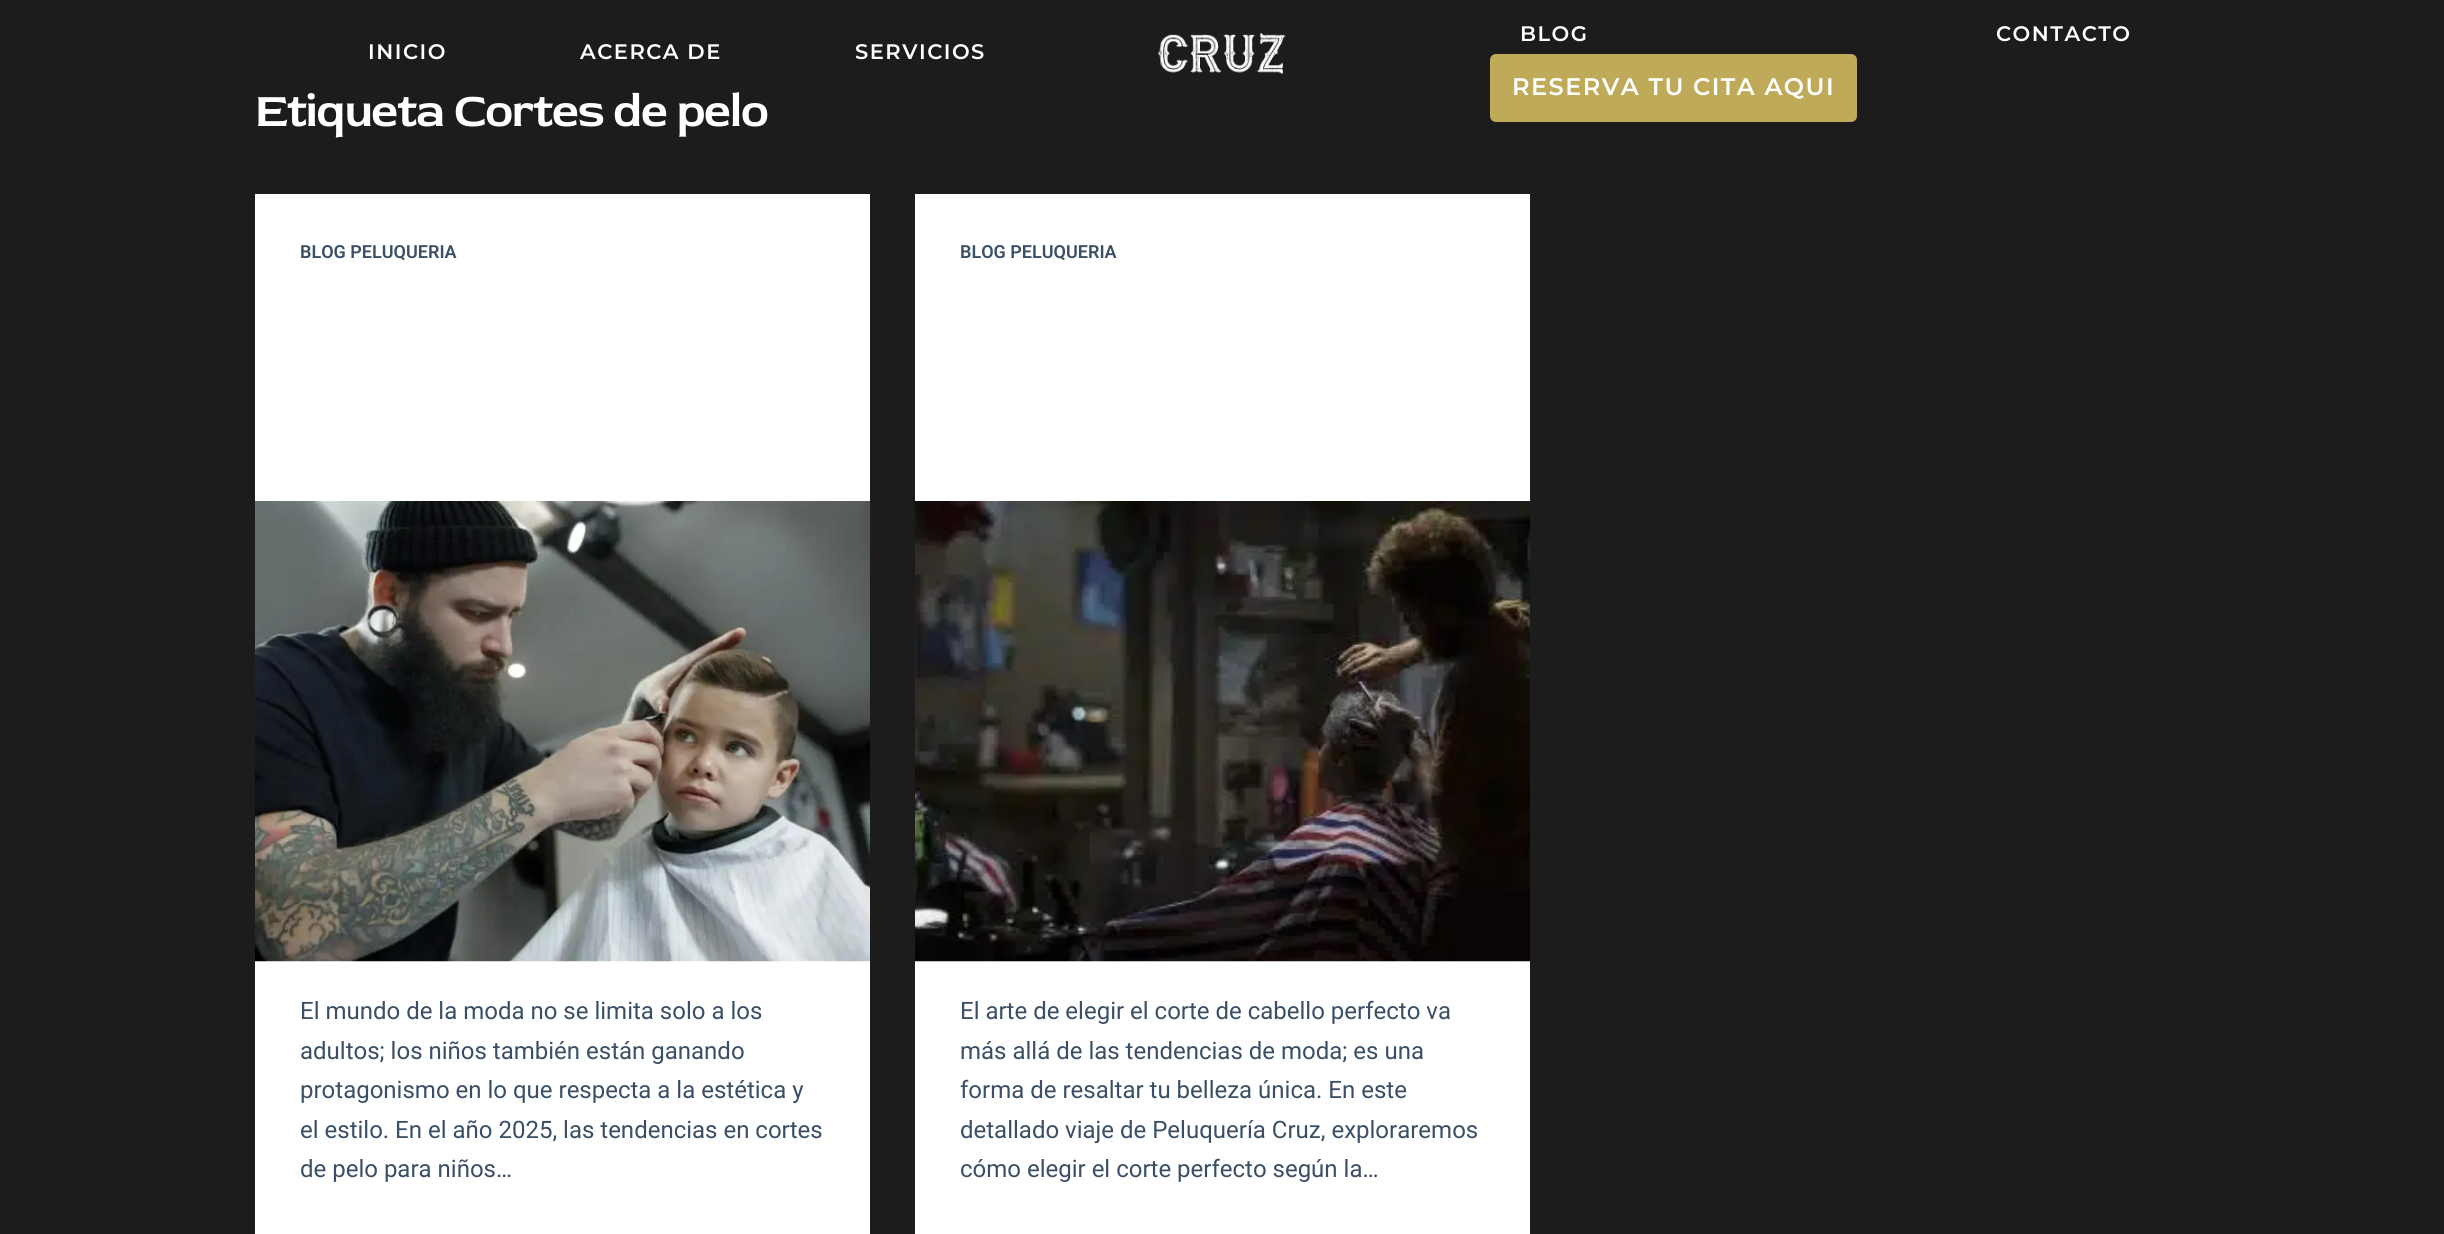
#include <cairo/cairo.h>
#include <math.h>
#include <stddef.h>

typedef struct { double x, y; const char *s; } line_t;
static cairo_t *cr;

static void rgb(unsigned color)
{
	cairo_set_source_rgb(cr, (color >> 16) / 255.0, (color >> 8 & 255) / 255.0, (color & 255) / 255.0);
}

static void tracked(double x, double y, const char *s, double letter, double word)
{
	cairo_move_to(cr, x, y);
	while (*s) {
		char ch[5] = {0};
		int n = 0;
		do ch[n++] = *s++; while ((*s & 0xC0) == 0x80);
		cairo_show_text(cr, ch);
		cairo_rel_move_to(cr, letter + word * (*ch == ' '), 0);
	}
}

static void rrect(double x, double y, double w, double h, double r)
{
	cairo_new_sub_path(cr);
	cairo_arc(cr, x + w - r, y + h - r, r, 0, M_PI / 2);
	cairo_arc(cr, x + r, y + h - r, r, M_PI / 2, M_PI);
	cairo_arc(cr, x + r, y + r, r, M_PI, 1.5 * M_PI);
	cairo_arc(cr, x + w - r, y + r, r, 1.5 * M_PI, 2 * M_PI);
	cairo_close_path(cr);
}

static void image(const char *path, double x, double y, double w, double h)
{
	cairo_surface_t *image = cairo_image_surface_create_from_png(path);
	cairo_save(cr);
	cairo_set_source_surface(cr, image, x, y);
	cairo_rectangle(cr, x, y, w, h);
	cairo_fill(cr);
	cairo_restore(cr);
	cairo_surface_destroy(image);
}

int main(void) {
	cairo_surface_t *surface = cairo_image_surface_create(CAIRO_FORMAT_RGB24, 2444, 1234);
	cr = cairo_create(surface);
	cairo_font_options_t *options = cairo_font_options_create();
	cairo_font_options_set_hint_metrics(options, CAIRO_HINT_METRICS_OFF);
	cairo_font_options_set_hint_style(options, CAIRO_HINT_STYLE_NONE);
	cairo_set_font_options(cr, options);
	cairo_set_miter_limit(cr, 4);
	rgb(0x1c1c1c);
	cairo_paint(cr);
	image("img/1.png", 1157, 33, 129, 41);
	rgb(0xbeaa59);
	rrect(1490, 54, 367, 68, 6);
	cairo_fill(cr);
	rgb(0xffffff);
	cairo_rectangle(cr, 255, 194, 615, 1040);
	cairo_fill(cr);
	image("img/2.png", 255, 501, 615, 461);
	cairo_rectangle(cr, 915, 194, 615, 1040);
	cairo_fill(cr);
	image("img/3.png", 915, 501, 615, 461);
	cairo_select_font_face(cr, "Montserrat SemiBold", CAIRO_FONT_SLANT_NORMAL, CAIRO_FONT_WEIGHT_NORMAL);
	cairo_set_font_size(cr, 21);
	{
		static const line_t items[] = {
			{368, 59, "INICIO"},
			{580, 59, "ACERCA DE"},
			{855, 59, "SERVICIOS"},
			{1520, 41, "BLOG"},
			{1996, 41, "CONTACTO"},
		};
		for (size_t i = 0; i < sizeof items / sizeof *items; i++) {
			tracked(items[i].x, items[i].y, items[i].s, 1.5, 0);
		}
	}
	cairo_set_font_size(cr, 24);
	tracked(1512, 95, "RESERVA TU CITA AQUI", 1.5, 0);
	cairo_select_font_face(cr, "Red Rose SemiBold", CAIRO_FONT_SLANT_NORMAL, CAIRO_FONT_WEIGHT_NORMAL);
	cairo_set_font_size(cr, 48);
	tracked(255, 126, "Etiqueta Cortes de pelo", -1.5, 0);
	cairo_select_font_face(cr, "Roboto SemiBold", CAIRO_FONT_SLANT_NORMAL, CAIRO_FONT_WEIGHT_NORMAL);
	cairo_set_font_size(cr, 18);
	rgb(0x3a4f66);
	cairo_move_to(cr, 300, 258);
	cairo_show_text(cr, "BLOG PELUQUERIA");
	cairo_select_font_face(cr, "Roboto", CAIRO_FONT_SLANT_NORMAL, CAIRO_FONT_WEIGHT_NORMAL);
	cairo_set_font_size(cr, 24);
	{
		static const line_t items[] = {
			{300, 1019, "El mundo de la moda no se limita solo a los"},
			{300, 1059, "adultos; los niños también están ganando"},
			{300, 1098, "protagonismo en lo que respecta a la estética y"},
			{300, 1138, "el estilo. En el año 2025, las tendencias en cortes"},
			{300, 1177, "de pelo para niños…"},
		};
		for (size_t i = 0; i < sizeof items / sizeof *items; i++) {
			cairo_move_to(cr, items[i].x, items[i].y);
			cairo_show_text(cr, items[i].s);
		}
	}
	cairo_select_font_face(cr, "Roboto SemiBold", CAIRO_FONT_SLANT_NORMAL, CAIRO_FONT_WEIGHT_NORMAL);
	cairo_set_font_size(cr, 18);
	cairo_move_to(cr, 960, 258);
	cairo_show_text(cr, "BLOG PELUQUERIA");
	cairo_select_font_face(cr, "Roboto", CAIRO_FONT_SLANT_NORMAL, CAIRO_FONT_WEIGHT_NORMAL);
	cairo_set_font_size(cr, 24);
	{
		static const line_t items[] = {
			{960, 1019, "El arte de elegir el corte de cabello perfecto va"},
			{960, 1059, "más allá de las tendencias de moda; es una"},
			{960, 1098, "forma de resaltar tu belleza única. En este"},
			{960, 1138, "detallado viaje de Peluquería Cruz, exploraremos"},
			{960, 1177, "cómo elegir el corte perfecto según la…"},
		};
		for (size_t i = 0; i < sizeof items / sizeof *items; i++) {
			cairo_move_to(cr, items[i].x, items[i].y);
			cairo_show_text(cr, items[i].s);
		}
	}
	cairo_surface_write_to_png(surface, "page.png");
	cairo_font_options_destroy(options);
	cairo_destroy(cr);
	cairo_surface_destroy(surface);
	return 0;
}
